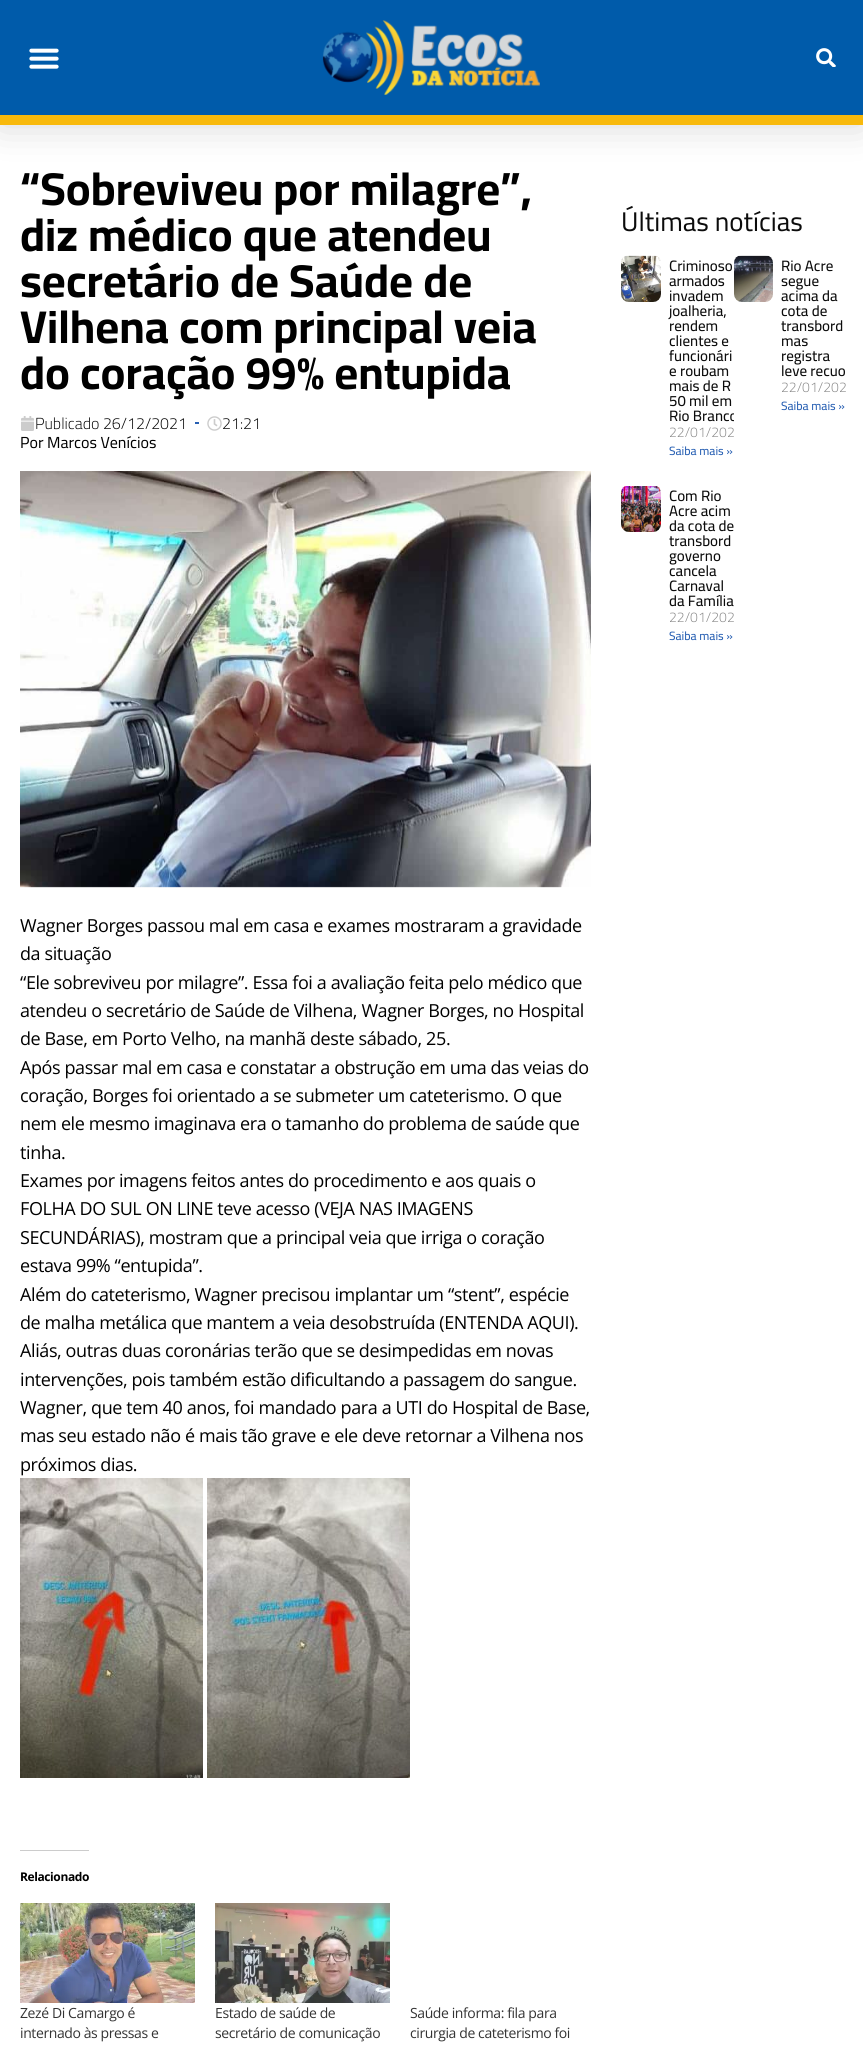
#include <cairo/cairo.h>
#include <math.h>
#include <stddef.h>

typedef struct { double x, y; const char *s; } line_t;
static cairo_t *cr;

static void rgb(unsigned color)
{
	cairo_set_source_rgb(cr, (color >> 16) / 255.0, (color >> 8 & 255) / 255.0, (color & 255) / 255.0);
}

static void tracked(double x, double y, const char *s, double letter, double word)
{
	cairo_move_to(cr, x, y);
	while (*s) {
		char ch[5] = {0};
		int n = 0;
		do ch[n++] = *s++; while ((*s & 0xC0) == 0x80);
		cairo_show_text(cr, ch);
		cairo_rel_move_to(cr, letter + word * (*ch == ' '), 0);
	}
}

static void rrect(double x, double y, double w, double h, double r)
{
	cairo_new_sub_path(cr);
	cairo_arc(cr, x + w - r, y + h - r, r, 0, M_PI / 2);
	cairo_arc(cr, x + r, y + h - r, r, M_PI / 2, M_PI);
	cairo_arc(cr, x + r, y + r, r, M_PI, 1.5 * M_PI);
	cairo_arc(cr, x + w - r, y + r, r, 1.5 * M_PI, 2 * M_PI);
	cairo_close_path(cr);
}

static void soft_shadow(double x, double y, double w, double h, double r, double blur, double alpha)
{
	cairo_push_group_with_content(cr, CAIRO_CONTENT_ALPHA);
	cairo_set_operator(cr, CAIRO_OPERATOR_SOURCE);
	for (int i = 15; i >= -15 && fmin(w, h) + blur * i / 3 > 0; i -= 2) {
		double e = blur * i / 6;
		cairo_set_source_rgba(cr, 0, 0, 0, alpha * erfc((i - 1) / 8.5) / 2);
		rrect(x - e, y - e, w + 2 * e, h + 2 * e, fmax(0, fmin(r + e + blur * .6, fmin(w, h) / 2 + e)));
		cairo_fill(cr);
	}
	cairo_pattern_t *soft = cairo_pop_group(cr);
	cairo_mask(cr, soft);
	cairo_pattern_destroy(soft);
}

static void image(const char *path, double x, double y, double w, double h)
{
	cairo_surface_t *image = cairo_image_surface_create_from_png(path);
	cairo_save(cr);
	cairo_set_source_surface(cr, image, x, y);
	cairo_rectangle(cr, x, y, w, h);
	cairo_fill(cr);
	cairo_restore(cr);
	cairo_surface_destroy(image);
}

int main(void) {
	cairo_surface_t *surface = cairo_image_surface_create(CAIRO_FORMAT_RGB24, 863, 2055);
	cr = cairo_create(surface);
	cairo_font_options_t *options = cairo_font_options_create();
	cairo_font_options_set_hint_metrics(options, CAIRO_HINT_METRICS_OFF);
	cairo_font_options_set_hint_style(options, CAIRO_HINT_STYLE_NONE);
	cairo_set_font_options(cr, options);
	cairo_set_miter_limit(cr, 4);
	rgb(0xffffff);
	cairo_paint(cr);
	rgb(0x000000);
	soft_shadow(0, 0, 863, 125, 0, 20, 0.16);
	rgb(0x005baa);
	cairo_rectangle(cr, 0, 0, 863, 115);
	cairo_fill(cr);
	rgb(0xf8b90c);
	cairo_rectangle(cr, 0, 115, 863, 10);
	cairo_fill(cr);
	image("img/1.png", 29, 48, 30, 21);
	image("img/2.png", 322, 20, 218, 75);
	image("img/3.png", 816, 48, 20, 19);
	image("img/4.png", 21, 416, 13, 15);
	rgb(0x2860b3);
	cairo_rectangle(cr, 195, 422, 4, 2);
	cairo_fill(cr);
	image("img/5.png", 207, 416, 15, 15);
	image("img/6.png", 20, 471, 571, 417);
	image("img/7.png", 20, 1478, 183, 300);
	image("img/8.png", 207, 1478, 203, 300);
	rgb(0xcccccc);
	cairo_rectangle(cr, 20, 1850, 69, 1);
	cairo_fill(cr);
	image("img/9.png", 20, 1903, 175, 100);
	image("img/10.png", 215, 1903, 175, 100);
	image("img/11.png", 621, 255, 40, 47);
	image("img/12.png", 734, 255, 39, 47);
	image("img/13.png", 621, 486, 40, 46);
	cairo_select_font_face(cr, "Cairo", CAIRO_FONT_SLANT_NORMAL, CAIRO_FONT_WEIGHT_BOLD);
	cairo_set_font_size(cr, 46);
	rgb(0x000000);
	{
		static const line_t items[] = {
			{20, 205, "“Sobreviveu por milagre”,"},
			{20, 251, "diz médico que atendeu"},
			{20, 297, "secretário de Saúde de"},
			{20, 343, "Vilhena com principal veia"},
			{20, 389, "do coração 99% entupida"},
		};
		for (size_t i = 0; i < sizeof items / sizeof *items; i++) {
			cairo_move_to(cr, items[i].x, items[i].y);
			cairo_show_text(cr, items[i].s);
		}
	}
	cairo_select_font_face(cr, "Cairo Light", CAIRO_FONT_SLANT_NORMAL, CAIRO_FONT_WEIGHT_NORMAL);
	cairo_set_font_size(cr, 16);
	cairo_move_to(cr, 35, 429);
	cairo_show_text(cr, "Publicado 26/12/2021");
	cairo_move_to(cr, 222, 429);
	cairo_show_text(cr, "21:21");
	cairo_select_font_face(cr, "Cairo", CAIRO_FONT_SLANT_NORMAL, CAIRO_FONT_WEIGHT_NORMAL);
	cairo_move_to(cr, 20, 448);
	cairo_show_text(cr, "Por Marcos Venícios");
	cairo_select_font_face(cr, "Open Sans", CAIRO_FONT_SLANT_NORMAL, CAIRO_FONT_WEIGHT_NORMAL);
	cairo_set_font_size(cr, 18);
	{
		static const line_t items[] = {
			{20, 932, "Wagner Borges passou mal em casa e exames mostraram a gravidade"},
			{20, 960, "da situação"},
			{20, 989, "“Ele sobreviveu por milagre”. Essa foi a avaliação feita pelo médico que"},
			{20, 1017, "atendeu o secretário de Saúde de Vilhena, Wagner Borges, no Hospital"},
			{20, 1045, "de Base, em Porto Velho, na manhã deste sábado, 25."},
			{20, 1074, "Após passar mal em casa e constatar a obstrução em uma das veias do"},
			{20, 1102, "coração, Borges foi orientado a se submeter um cateterismo. O que"},
			{20, 1130, "nem ele mesmo imaginava era o tamanho do problema de saúde que"},
			{20, 1159, "tinha."},
			{20, 1187, "Exames por imagens feitos antes do procedimento e aos quais o"},
			{20, 1215, "FOLHA DO SUL ON LINE teve acesso (VEJA NAS IMAGENS"},
			{20, 1244, "SECUNDÁRIAS), mostram que a principal veia que irriga o coração"},
			{20, 1272, "estava 99% “entupida”."},
			{20, 1301, "Além do cateterismo, Wagner precisou implantar um “stent”, espécie"},
			{20, 1329, "de malha metálica que mantem a veia desobstruída (ENTENDA AQUI)."},
			{20, 1357, "Aliás, outras duas coronárias terão que se desimpedidas em novas"},
			{20, 1386, "intervenções, pois também estão dificultando a passagem do sangue."},
			{20, 1414, "Wagner, que tem 40 anos, foi mandado para a UTI do Hospital de Base,"},
			{20, 1442, "mas seu estado não é mais tão grave e ele deve retornar a Vilhena nos"},
			{20, 1471, "próximos dias."},
		};
		for (size_t i = 0; i < sizeof items / sizeof *items; i++) {
			tracked(items[i].x, items[i].y, items[i].s, -0.4, 0);
		}
	}
	cairo_select_font_face(cr, "Open Sans", CAIRO_FONT_SLANT_NORMAL, CAIRO_FONT_WEIGHT_BOLD);
	cairo_set_font_size(cr, 12);
	tracked(20, 1881, "Relacionado", -0.4, 0);
	cairo_select_font_face(cr, "Open Sans", CAIRO_FONT_SLANT_NORMAL, CAIRO_FONT_WEIGHT_NORMAL);
	cairo_set_font_size(cr, 14);
	rgb(0x333333);
	{
		static const line_t items[] = {
			{20, 2018, "Zezé Di Camargo é"},
			{20, 2038, "internado às pressas e"},
			{215, 2018, "Estado de saúde de"},
			{215, 2038, "secretário de comunicação"},
			{410, 2018, "Saúde informa: fila para"},
			{410, 2038, "cirurgia de cateterismo foi"},
		};
		for (size_t i = 0; i < sizeof items / sizeof *items; i++) {
			tracked(items[i].x, items[i].y, items[i].s, -0.4, 0);
		}
	}
	cairo_select_font_face(cr, "Cairo", CAIRO_FONT_SLANT_NORMAL, CAIRO_FONT_WEIGHT_NORMAL);
	cairo_set_font_size(cr, 27);
	rgb(0x0c0c0c);
	cairo_move_to(cr, 621, 231);
	cairo_show_text(cr, "Últimas notícias");
	cairo_select_font_face(cr, "Cairo Medium", CAIRO_FONT_SLANT_NORMAL, CAIRO_FONT_WEIGHT_NORMAL);
	cairo_set_font_size(cr, 15);
	{
		static const line_t items[] = {
			{669, 271, "Criminoso"},
			{669, 286, "armados"},
			{669, 301, "invadem"},
			{669, 316, "joalheria,"},
			{669, 331, "rendem"},
			{669, 346, "clientes e"},
			{669, 361, "funcionári"},
			{669, 376, "e roubam"},
			{669, 391, "mais de R"},
			{669, 406, "50 mil em"},
		};
		for (size_t i = 0; i < sizeof items / sizeof *items; i++) {
			cairo_move_to(cr, items[i].x, items[i].y);
			cairo_show_text(cr, items[i].s);
		}
	}
	cairo_save(cr);
	cairo_rectangle(cr, 621, 255, 113, 202);
	cairo_clip(cr);
	cairo_move_to(cr, 669, 421);
	cairo_show_text(cr, "Rio Branco");
	cairo_restore(cr);
	cairo_select_font_face(cr, "Cairo Light", CAIRO_FONT_SLANT_NORMAL, CAIRO_FONT_WEIGHT_NORMAL);
	cairo_set_font_size(cr, 14);
	rgb(0x868686);
	cairo_move_to(cr, 669, 437);
	cairo_show_text(cr, "22/01/202");
	cairo_select_font_face(cr, "Cairo Medium", CAIRO_FONT_SLANT_NORMAL, CAIRO_FONT_WEIGHT_NORMAL);
	cairo_set_font_size(cr, 12);
	rgb(0x2860b3);
	cairo_move_to(cr, 669, 455);
	cairo_show_text(cr, "Saiba mais »");
	cairo_set_font_size(cr, 15);
	rgb(0x0c0c0c);
	{
		static const line_t items[] = {
			{781, 271, "Rio Acre"},
			{781, 286, "segue"},
			{781, 301, "acima da"},
			{781, 316, "cota de"},
			{781, 331, "transbord"},
			{781, 346, "mas"},
			{781, 361, "registra"},
			{781, 376, "leve recuo"},
		};
		for (size_t i = 0; i < sizeof items / sizeof *items; i++) {
			cairo_move_to(cr, items[i].x, items[i].y);
			cairo_show_text(cr, items[i].s);
		}
	}
	cairo_select_font_face(cr, "Cairo Light", CAIRO_FONT_SLANT_NORMAL, CAIRO_FONT_WEIGHT_NORMAL);
	cairo_set_font_size(cr, 14);
	rgb(0x868686);
	cairo_move_to(cr, 781, 392);
	cairo_show_text(cr, "22/01/202");
	cairo_select_font_face(cr, "Cairo Medium", CAIRO_FONT_SLANT_NORMAL, CAIRO_FONT_WEIGHT_NORMAL);
	cairo_set_font_size(cr, 12);
	rgb(0x2860b3);
	cairo_move_to(cr, 781, 410);
	cairo_show_text(cr, "Saiba mais »");
	cairo_set_font_size(cr, 15);
	rgb(0x0c0c0c);
	{
		static const line_t items[] = {
			{669, 501, "Com Rio"},
			{669, 516, "Acre acim"},
			{669, 531, "da cota de"},
			{669, 546, "transbord"},
			{669, 561, "governo"},
			{669, 576, "cancela"},
			{669, 591, "Carnaval"},
			{669, 606, "da Família"},
		};
		for (size_t i = 0; i < sizeof items / sizeof *items; i++) {
			cairo_move_to(cr, items[i].x, items[i].y);
			cairo_show_text(cr, items[i].s);
		}
	}
	cairo_select_font_face(cr, "Cairo Light", CAIRO_FONT_SLANT_NORMAL, CAIRO_FONT_WEIGHT_NORMAL);
	cairo_set_font_size(cr, 14);
	rgb(0x868686);
	cairo_move_to(cr, 669, 622);
	cairo_show_text(cr, "22/01/202");
	cairo_select_font_face(cr, "Cairo Medium", CAIRO_FONT_SLANT_NORMAL, CAIRO_FONT_WEIGHT_NORMAL);
	cairo_set_font_size(cr, 12);
	rgb(0x2860b3);
	cairo_move_to(cr, 669, 640);
	cairo_show_text(cr, "Saiba mais »");
	cairo_surface_write_to_png(surface, "page.png");
	cairo_font_options_destroy(options);
	cairo_destroy(cr);
	cairo_surface_destroy(surface);
	return 0;
}
